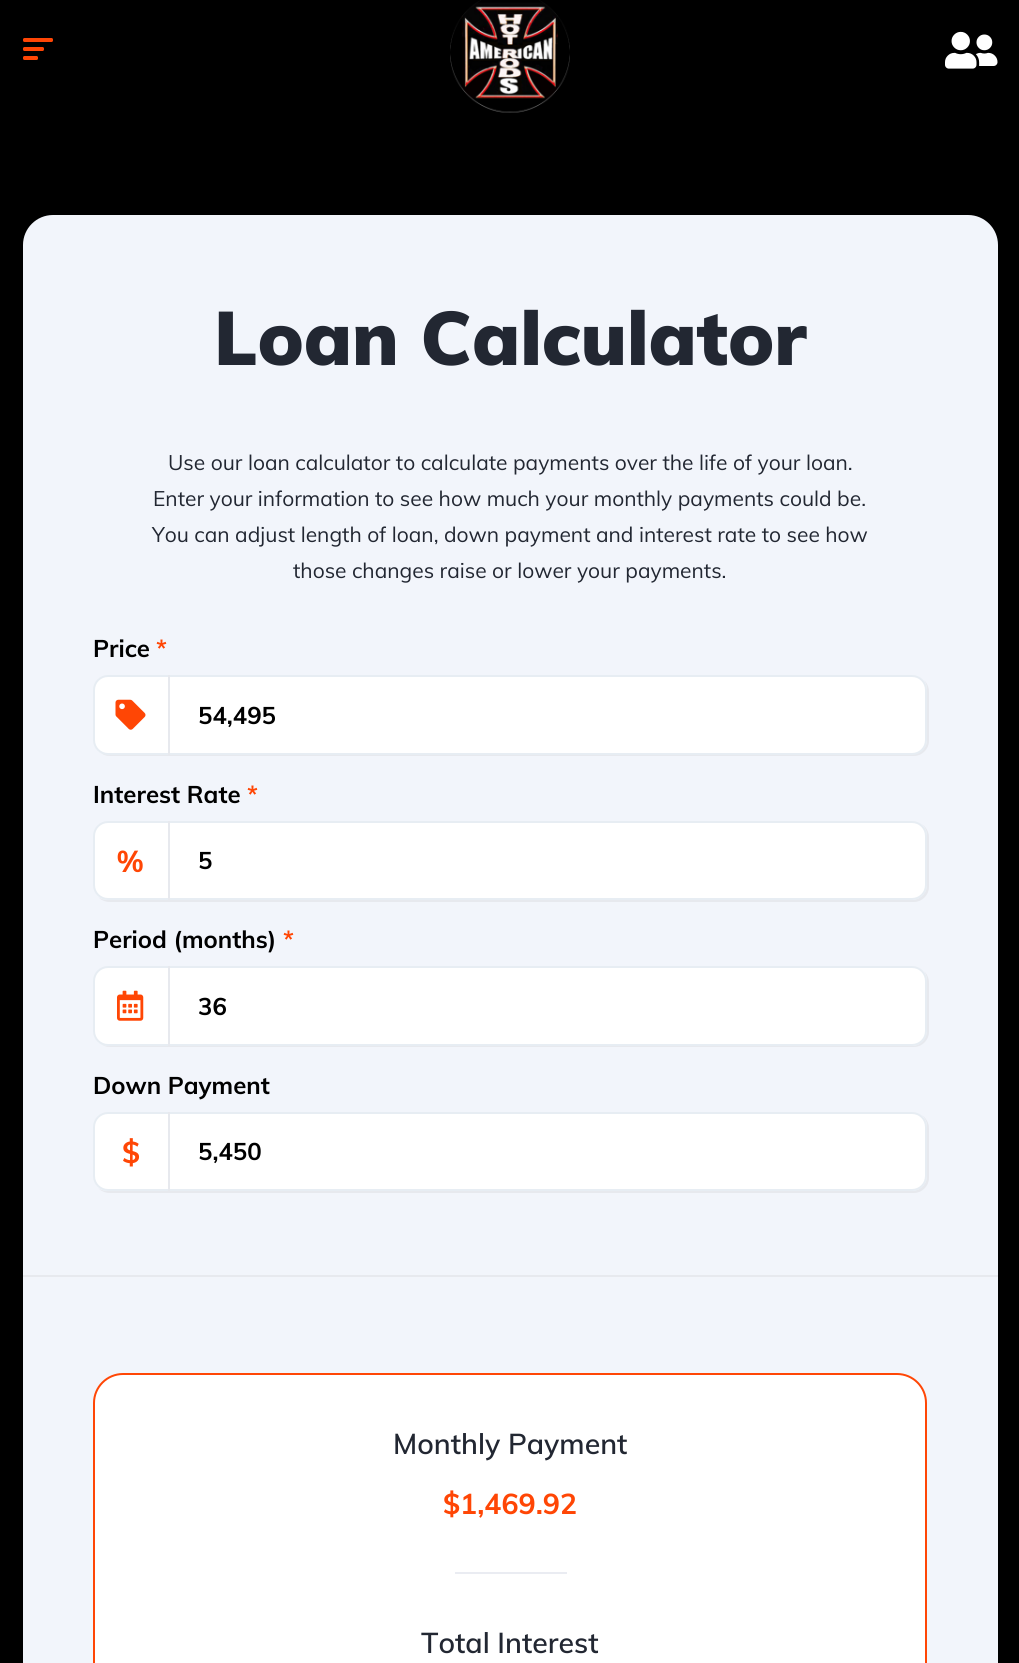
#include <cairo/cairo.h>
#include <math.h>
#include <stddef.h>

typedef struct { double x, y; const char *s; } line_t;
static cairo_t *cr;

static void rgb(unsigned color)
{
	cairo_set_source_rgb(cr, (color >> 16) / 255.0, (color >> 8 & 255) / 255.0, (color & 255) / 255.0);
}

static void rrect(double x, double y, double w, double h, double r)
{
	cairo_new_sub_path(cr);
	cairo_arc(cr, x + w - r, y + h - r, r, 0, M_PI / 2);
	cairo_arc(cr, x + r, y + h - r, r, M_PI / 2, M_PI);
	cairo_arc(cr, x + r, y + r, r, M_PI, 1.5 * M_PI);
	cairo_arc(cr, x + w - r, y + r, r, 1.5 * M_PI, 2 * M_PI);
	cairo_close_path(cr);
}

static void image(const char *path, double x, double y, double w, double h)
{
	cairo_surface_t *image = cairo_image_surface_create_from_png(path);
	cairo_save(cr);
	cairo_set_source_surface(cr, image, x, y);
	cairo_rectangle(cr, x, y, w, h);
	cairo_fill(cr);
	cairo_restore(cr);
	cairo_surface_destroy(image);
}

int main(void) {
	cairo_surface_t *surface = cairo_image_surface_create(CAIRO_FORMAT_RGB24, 1019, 1663);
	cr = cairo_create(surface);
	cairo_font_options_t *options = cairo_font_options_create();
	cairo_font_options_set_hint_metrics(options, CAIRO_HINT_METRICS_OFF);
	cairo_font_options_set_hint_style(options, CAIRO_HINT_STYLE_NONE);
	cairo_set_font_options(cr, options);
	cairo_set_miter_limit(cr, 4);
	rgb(0x000000);
	cairo_paint(cr);
	rgb(0xff4605);
	rrect(23, 38, 30, 4, 1.5);
	cairo_fill(cr);
	rrect(23, 47, 21, 4, 1.5);
	cairo_fill(cr);
	rrect(23, 56, 15, 4, 1.5);
	cairo_fill(cr);
	image("img/1.png", 450, 0, 120, 113);
	image("img/2.png", 945, 31, 53, 38);
	rgb(0xf2f5fb);
	rrect(23, 215, 975, 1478, 30);
	cairo_fill(cr);
	rgb(0xe7e9ee);
	cairo_new_path(cr);
	cairo_move_to(cr, 100, 752);
	cairo_curve_to(cr, 103, 755, 106, 756, 110, 756);
	cairo_line_to(cr, 914, 756);
	cairo_curve_to(cr, 922, 756, 929, 749, 929, 741);
	cairo_line_to(cr, 929, 692);
	cairo_curve_to(cr, 929, 687, 927, 683, 924, 680);
	cairo_curve_to(cr, 926, 683, 927, 686, 927, 690);
	cairo_line_to(cr, 927, 740);
	cairo_curve_to(cr, 927, 748, 920, 754, 912, 754);
	cairo_line_to(cr, 108, 754);
	cairo_curve_to(cr, 105, 754, 102, 754, 100, 752);
	cairo_close_path(cr);
	cairo_fill(cr);
	rgb(0xffffff);
	rrect(94, 676, 832, 78, 14);
	cairo_fill_preserve(cr);
	rgb(0xe7edf3);
	cairo_stroke(cr);
	image("img/3.png", 115, 699, 31, 31);
	rgb(0xe7e9ee);
	cairo_rectangle(cr, 168, 675, 2, 80);
	cairo_fill(cr);
	cairo_new_path(cr);
	cairo_move_to(cr, 98, 897);
	cairo_curve_to(cr, 101, 900, 105, 902, 110, 902);
	cairo_line_to(cr, 914, 902);
	cairo_curve_to(cr, 922, 902, 929, 895, 929, 887);
	cairo_line_to(cr, 929, 837);
	cairo_curve_to(cr, 929, 832, 926, 827, 922, 824);
	cairo_curve_to(cr, 925, 827, 927, 831, 927, 836);
	cairo_line_to(cr, 927, 885);
	cairo_curve_to(cr, 927, 893, 920, 900, 912, 900);
	cairo_line_to(cr, 108, 900);
	cairo_curve_to(cr, 104, 900, 101, 899, 98, 897);
	cairo_close_path(cr);
	cairo_fill(cr);
	rgb(0xffffff);
	rrect(94, 822, 832, 77, 14);
	cairo_fill_preserve(cr);
	rgb(0xe7edf3);
	cairo_stroke(cr);
	rgb(0xe7e9ee);
	cairo_rectangle(cr, 168, 821, 2, 79);
	cairo_fill(cr);
	cairo_new_path(cr);
	cairo_move_to(cr, 100, 1043);
	cairo_curve_to(cr, 103, 1046, 106, 1047, 110, 1047);
	cairo_line_to(cr, 914, 1047);
	cairo_curve_to(cr, 922, 1047, 929, 1040, 929, 1032);
	cairo_line_to(cr, 929, 983);
	cairo_curve_to(cr, 929, 978, 927, 974, 924, 971);
	cairo_curve_to(cr, 926, 974, 927, 977, 927, 981);
	cairo_line_to(cr, 927, 1030);
	cairo_curve_to(cr, 927, 1039, 920, 1046, 912, 1046);
	cairo_line_to(cr, 108, 1046);
	cairo_curve_to(cr, 105, 1046, 102, 1045, 100, 1043);
	cairo_close_path(cr);
	cairo_fill(cr);
	rgb(0xffffff);
	rrect(94, 967, 832, 78, 14);
	cairo_fill_preserve(cr);
	rgb(0xe7edf3);
	cairo_stroke(cr);
	image("img/4.png", 117, 990, 27, 31);
	rgb(0xe7e9ee);
	cairo_rectangle(cr, 168, 966, 2, 80);
	cairo_fill(cr);
	cairo_new_path(cr);
	cairo_move_to(cr, 98, 1188);
	cairo_curve_to(cr, 101, 1191, 105, 1193, 110, 1193);
	cairo_line_to(cr, 914, 1193);
	cairo_curve_to(cr, 922, 1193, 929, 1186, 929, 1178);
	cairo_line_to(cr, 929, 1128);
	cairo_curve_to(cr, 929, 1123, 926, 1118, 922, 1115);
	cairo_curve_to(cr, 925, 1118, 927, 1122, 927, 1126);
	cairo_line_to(cr, 927, 1176);
	cairo_curve_to(cr, 927, 1184, 920, 1191, 912, 1191);
	cairo_line_to(cr, 108, 1191);
	cairo_curve_to(cr, 104, 1191, 101, 1190, 98, 1188);
	cairo_close_path(cr);
	cairo_fill(cr);
	rgb(0xffffff);
	rrect(94, 1113, 832, 77, 14);
	cairo_fill_preserve(cr);
	rgb(0xe7edf3);
	cairo_stroke(cr);
	rgb(0xe7e9ee);
	cairo_rectangle(cr, 168, 1112, 2, 79);
	cairo_fill(cr);
	cairo_rectangle(cr, 23, 1275, 975, 2);
	cairo_fill(cr);
	rgb(0xffffff);
	rrect(94, 1374, 832, 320, 29);
	cairo_fill_preserve(cr);
	rgb(0xff4605);
	cairo_stroke(cr);
	rgb(0xeaecf2);
	cairo_rectangle(cr, 455, 1572, 112, 2);
	cairo_fill(cr);
	cairo_select_font_face(cr, "Muli Black", CAIRO_FONT_SLANT_NORMAL, CAIRO_FONT_WEIGHT_NORMAL);
	cairo_set_font_size(cr, 75);
	rgb(0x222732);
	cairo_move_to(cr, 214, 365);
	cairo_show_text(cr, "Loan Calculator");
	cairo_select_font_face(cr, "Muli", CAIRO_FONT_SLANT_NORMAL, CAIRO_FONT_WEIGHT_NORMAL);
	cairo_set_font_size(cr, 21);
	{
		static const line_t items[] = {
			{168, 470, "Use our loan calculator to calculate payments over the life of your loan."},
			{153, 506, "Enter your information to see how much your monthly payments could be."},
			{152, 542, "You can adjust length of loan, down payment and interest rate to see how"},
			{293, 578, "those changes raise or lower your payments."},
		};
		for (size_t i = 0; i < sizeof items / sizeof *items; i++) {
			cairo_move_to(cr, items[i].x, items[i].y);
			cairo_show_text(cr, items[i].s);
		}
	}
	cairo_select_font_face(cr, "Muli", CAIRO_FONT_SLANT_NORMAL, CAIRO_FONT_WEIGHT_BOLD);
	cairo_set_font_size(cr, 24);
	rgb(0x000000);
	cairo_move_to(cr, 93, 657);
	cairo_show_text(cr, "Price");
	rgb(0xff4605);
	cairo_move_to(cr, 156, 657);
	cairo_show_text(cr, "*");
	rgb(0x000000);
	cairo_move_to(cr, 198, 724);
	cairo_show_text(cr, "54,495");
	cairo_move_to(cr, 93, 803);
	cairo_show_text(cr, "Interest Rate");
	rgb(0xff4605);
	cairo_move_to(cr, 247, 803);
	cairo_show_text(cr, "*");
	cairo_set_font_size(cr, 30);
	cairo_move_to(cr, 117, 872);
	cairo_show_text(cr, "%");
	cairo_set_font_size(cr, 24);
	rgb(0x000000);
	cairo_move_to(cr, 198, 869);
	cairo_show_text(cr, "5");
	cairo_move_to(cr, 93, 948);
	cairo_show_text(cr, "Period (months)");
	rgb(0xff4605);
	cairo_move_to(cr, 283, 948);
	cairo_show_text(cr, "*");
	rgb(0x000000);
	cairo_move_to(cr, 198, 1015);
	cairo_show_text(cr, "36");
	cairo_move_to(cr, 93, 1094);
	cairo_show_text(cr, "Down Payment");
	cairo_set_font_size(cr, 30);
	rgb(0xff4605);
	cairo_move_to(cr, 122, 1163);
	cairo_show_text(cr, "$");
	cairo_set_font_size(cr, 24);
	rgb(0x000000);
	cairo_move_to(cr, 198, 1160);
	cairo_show_text(cr, "5,450");
	cairo_select_font_face(cr, "Muli SemiBold", CAIRO_FONT_SLANT_NORMAL, CAIRO_FONT_WEIGHT_NORMAL);
	cairo_set_font_size(cr, 28.5);
	rgb(0x222732);
	cairo_move_to(cr, 393, 1454);
	cairo_show_text(cr, "Monthly Payment");
	cairo_select_font_face(cr, "Muli", CAIRO_FONT_SLANT_NORMAL, CAIRO_FONT_WEIGHT_BOLD);
	rgb(0xff4605);
	cairo_move_to(cr, 443, 1514);
	cairo_show_text(cr, "$1,469.92");
	cairo_select_font_face(cr, "Muli SemiBold", CAIRO_FONT_SLANT_NORMAL, CAIRO_FONT_WEIGHT_NORMAL);
	rgb(0x222732);
	cairo_move_to(cr, 421, 1653);
	cairo_show_text(cr, "Total Interest");
	cairo_surface_write_to_png(surface, "page.png");
	cairo_font_options_destroy(options);
	cairo_destroy(cr);
	cairo_surface_destroy(surface);
	return 0;
}
